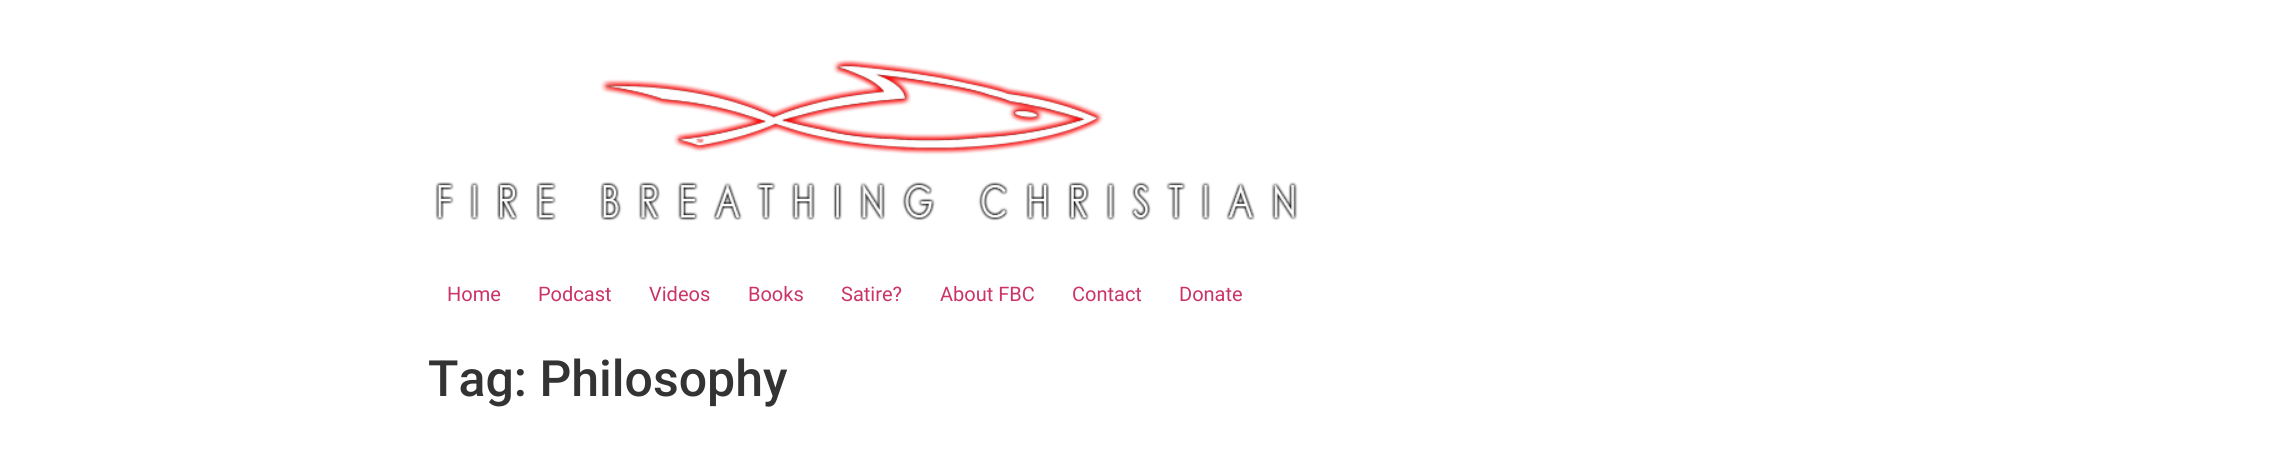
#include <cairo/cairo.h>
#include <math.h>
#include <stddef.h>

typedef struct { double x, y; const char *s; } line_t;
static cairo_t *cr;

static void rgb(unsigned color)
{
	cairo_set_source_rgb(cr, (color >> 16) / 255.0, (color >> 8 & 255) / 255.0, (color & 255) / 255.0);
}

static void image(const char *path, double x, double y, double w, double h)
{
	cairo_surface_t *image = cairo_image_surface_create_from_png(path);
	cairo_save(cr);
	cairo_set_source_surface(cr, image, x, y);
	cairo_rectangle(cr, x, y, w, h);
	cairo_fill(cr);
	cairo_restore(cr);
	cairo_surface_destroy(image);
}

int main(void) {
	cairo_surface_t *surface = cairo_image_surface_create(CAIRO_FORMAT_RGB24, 2281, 456);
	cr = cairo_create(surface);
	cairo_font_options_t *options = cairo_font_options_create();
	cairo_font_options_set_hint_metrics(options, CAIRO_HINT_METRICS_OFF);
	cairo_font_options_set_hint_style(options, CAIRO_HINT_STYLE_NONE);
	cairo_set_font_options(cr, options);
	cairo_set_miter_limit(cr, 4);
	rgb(0xffffff);
	cairo_paint(cr);
	image("img/1.png", 435, 59, 863, 162);
	cairo_select_font_face(cr, "Roboto", CAIRO_FONT_SLANT_NORMAL, CAIRO_FONT_WEIGHT_NORMAL);
	cairo_set_font_size(cr, 20);
	rgb(0xcc3366);
	{
		static const line_t items[] = {
			{447, 301, "Home"},
			{538, 301, "Podcast"},
			{649, 301, "Videos"},
			{748, 301, "Books"},
			{841, 301, "Satire?"},
			{940, 301, "About FBC"},
			{1072, 301, "Contact"},
			{1179, 301, "Donate"},
		};
		for (size_t i = 0; i < sizeof items / sizeof *items; i++) {
			cairo_move_to(cr, items[i].x, items[i].y);
			cairo_show_text(cr, items[i].s);
		}
	}
	cairo_select_font_face(cr, "Roboto Medium", CAIRO_FONT_SLANT_NORMAL, CAIRO_FONT_WEIGHT_NORMAL);
	cairo_set_font_size(cr, 50);
	rgb(0x333333);
	cairo_move_to(cr, 428, 396);
	cairo_show_text(cr, "Tag: Philosophy");
	cairo_surface_write_to_png(surface, "page.png");
	cairo_font_options_destroy(options);
	cairo_destroy(cr);
	cairo_surface_destroy(surface);
	return 0;
}
